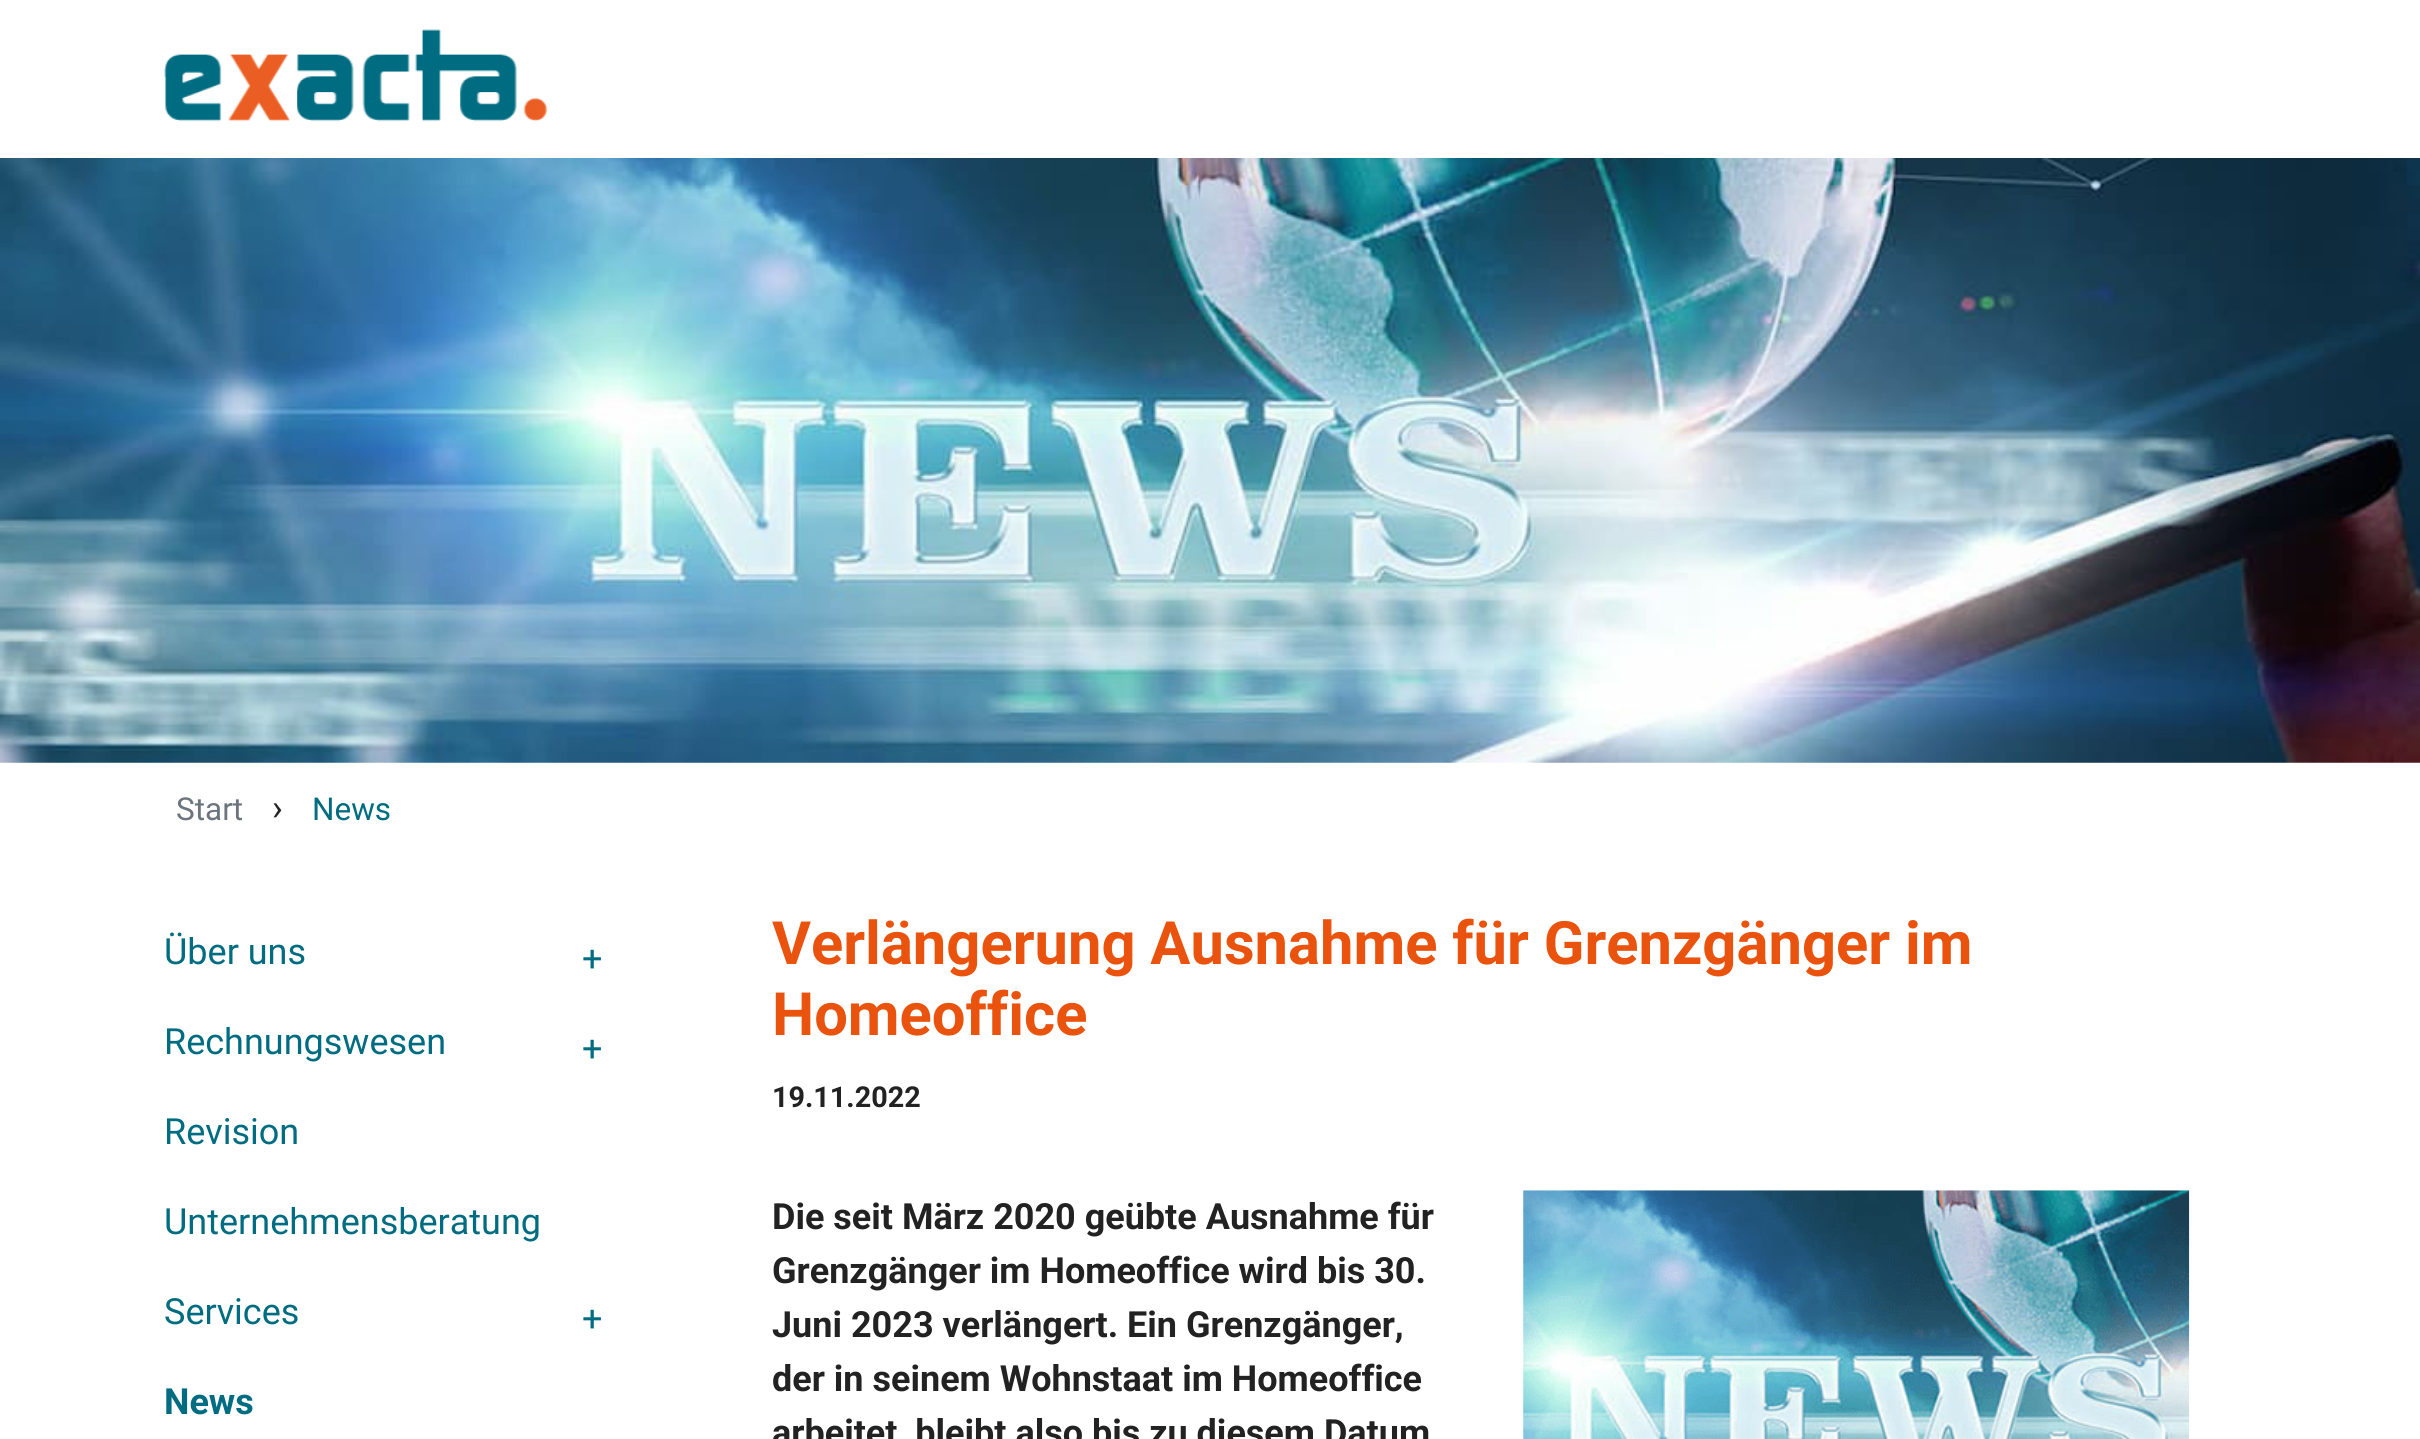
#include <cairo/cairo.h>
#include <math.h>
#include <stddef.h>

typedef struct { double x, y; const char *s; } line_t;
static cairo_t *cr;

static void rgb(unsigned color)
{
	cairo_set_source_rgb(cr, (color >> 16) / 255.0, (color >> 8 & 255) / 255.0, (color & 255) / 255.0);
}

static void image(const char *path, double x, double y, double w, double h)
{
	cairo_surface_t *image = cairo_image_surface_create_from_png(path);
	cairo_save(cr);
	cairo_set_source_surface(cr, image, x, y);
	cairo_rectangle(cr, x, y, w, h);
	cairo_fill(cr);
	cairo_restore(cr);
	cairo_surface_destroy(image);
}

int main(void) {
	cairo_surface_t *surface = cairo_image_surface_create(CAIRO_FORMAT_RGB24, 2420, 1439);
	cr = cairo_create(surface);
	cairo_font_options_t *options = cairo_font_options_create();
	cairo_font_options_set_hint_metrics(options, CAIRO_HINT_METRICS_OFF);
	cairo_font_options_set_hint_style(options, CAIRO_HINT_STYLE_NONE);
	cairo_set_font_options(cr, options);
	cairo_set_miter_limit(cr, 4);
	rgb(0xffffff);
	cairo_paint(cr);
	image("img/1.png", 164, 29, 383, 93);
	image("img/2.png", 0, 158, 2420, 605);
	image("img/3.png", 1523, 1190, 667, 249);
	cairo_select_font_face(cr, "Roboto", CAIRO_FONT_SLANT_NORMAL, CAIRO_FONT_WEIGHT_NORMAL);
	cairo_set_font_size(cr, 31.5);
	rgb(0x6c757d);
	cairo_move_to(cr, 176, 820);
	cairo_show_text(cr, "Start");
	cairo_set_font_size(cr, 36);
	rgb(0x222222);
	cairo_move_to(cr, 272, 820);
	cairo_show_text(cr, "›");
	cairo_set_font_size(cr, 31.5);
	rgb(0x006c81);
	cairo_move_to(cr, 312, 820);
	cairo_show_text(cr, "News");
	cairo_set_font_size(cr, 36);
	{
		static const line_t items[] = {
			{164, 964, "Über uns"},
			{582, 971, "+"},
			{164, 1054, "Rechnungswesen"},
			{582, 1061, "+"},
			{164, 1144, "Revision"},
			{164, 1234, "Unternehmensberatung"},
			{164, 1324, "Services"},
			{582, 1331, "+"},
		};
		for (size_t i = 0; i < sizeof items / sizeof *items; i++) {
			cairo_move_to(cr, items[i].x, items[i].y);
			cairo_show_text(cr, items[i].s);
		}
	}
	cairo_select_font_face(cr, "Roboto", CAIRO_FONT_SLANT_NORMAL, CAIRO_FONT_WEIGHT_BOLD);
	cairo_move_to(cr, 164, 1414);
	cairo_show_text(cr, "News");
	cairo_set_font_size(cr, 59.7);
	rgb(0xe9530d);
	cairo_move_to(cr, 772, 964);
	cairo_show_text(cr, "Verlängerung Ausnahme für Grenzgänger im");
	cairo_move_to(cr, 772, 1035);
	cairo_show_text(cr, "Homeoffice");
	cairo_set_font_size(cr, 28.75);
	rgb(0x222222);
	cairo_move_to(cr, 772, 1107);
	cairo_show_text(cr, "19.11.2022");
	cairo_set_font_size(cr, 36);
	{
		static const line_t items[] = {
			{772, 1229, "Die seit März 2020 geübte Ausnahme für"},
			{772, 1283, "Grenzgänger im Homeoffice wird bis 30."},
			{772, 1337, "Juni 2023 verlängert. Ein Grenzgänger,"},
			{772, 1391, "der in seinem Wohnstaat im Homeoffice"},
			{772, 1445, "arbeitet, bleibt also bis zu diesem Datum"},
		};
		for (size_t i = 0; i < sizeof items / sizeof *items; i++) {
			cairo_move_to(cr, items[i].x, items[i].y);
			cairo_show_text(cr, items[i].s);
		}
	}
	cairo_surface_write_to_png(surface, "page.png");
	cairo_font_options_destroy(options);
	cairo_destroy(cr);
	cairo_surface_destroy(surface);
	return 0;
}
